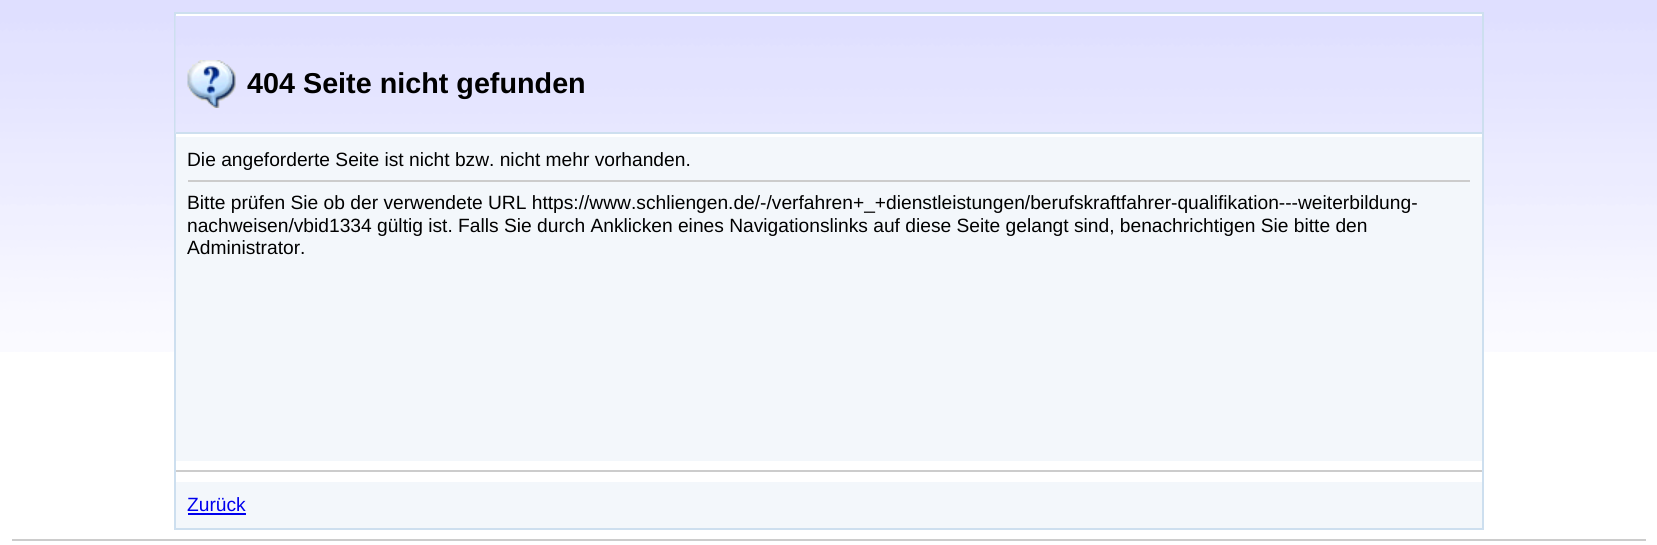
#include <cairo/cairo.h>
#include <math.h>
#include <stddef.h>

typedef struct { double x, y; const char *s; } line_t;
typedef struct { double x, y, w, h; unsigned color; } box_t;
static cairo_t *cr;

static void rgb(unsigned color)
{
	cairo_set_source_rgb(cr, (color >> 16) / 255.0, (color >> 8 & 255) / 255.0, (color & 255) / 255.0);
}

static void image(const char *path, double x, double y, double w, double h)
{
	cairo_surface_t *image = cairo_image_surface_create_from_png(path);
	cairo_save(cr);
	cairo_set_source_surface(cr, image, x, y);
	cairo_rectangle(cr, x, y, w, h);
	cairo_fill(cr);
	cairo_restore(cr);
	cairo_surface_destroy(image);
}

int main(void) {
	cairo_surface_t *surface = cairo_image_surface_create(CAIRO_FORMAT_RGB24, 1657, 545);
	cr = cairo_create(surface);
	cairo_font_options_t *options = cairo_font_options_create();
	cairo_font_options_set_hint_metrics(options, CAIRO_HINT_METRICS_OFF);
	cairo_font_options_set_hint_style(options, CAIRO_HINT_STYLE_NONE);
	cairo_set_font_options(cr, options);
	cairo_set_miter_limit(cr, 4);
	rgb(0xffffff);
	cairo_paint(cr);
	image("img/1.png", 0, 0, 1657, 352);
	cairo_rectangle(cr, 175, 13, 1308, 516);
	rgb(0xcddfef);
	cairo_stroke(cr);
	image("img/2.png", 175, 15, 1307, 119);
	rgb(0xffffff);
	cairo_rectangle(cr, 176, 14, 1306, 2);
	cairo_fill(cr);
	rgb(0xcddfef);
	cairo_rectangle(cr, 176, 132, 1306, 2);
	cairo_fill(cr);
	image("img/3.png", 187, 60, 49, 48);
	{
		static const box_t items[] = {
			{176, 137, 1306, 324, 0xf3f7fb},
			{176, 134, 1306, 3, 0xffffff},
			{188, 180, 1282, 2, 0xcccccc},
			{176, 470, 1306, 2, 0xcccccc},
			{176, 482, 1306, 46, 0xf3f7fb},
			{188, 513, 58, 2, 0x0000ee},
			{12, 539, 1634, 2, 0xcccccc},
		};
		for (size_t i = 0; i < sizeof items / sizeof *items; i++) {
			rgb(items[i].color);
			cairo_rectangle(cr, items[i].x, items[i].y, items[i].w, items[i].h);
			cairo_fill(cr);
		}
	}
	cairo_select_font_face(cr, "Liberation Sans", CAIRO_FONT_SLANT_NORMAL, CAIRO_FONT_WEIGHT_BOLD);
	cairo_set_font_size(cr, 28.75);
	rgb(0x000000);
	cairo_move_to(cr, 247, 93);
	cairo_show_text(cr, "404 Seite nicht gefunden");
	cairo_select_font_face(cr, "Liberation Sans", CAIRO_FONT_SLANT_NORMAL, CAIRO_FONT_WEIGHT_NORMAL);
	cairo_set_font_size(cr, 19.2);
	{
		static const line_t items[] = {
			{187, 166, "Die angeforderte Seite ist nicht bzw. nicht mehr vorhanden."},
			{187, 209, "Bitte prüfen Sie ob der verwendete URL https://www.schliengen.de/-/verfahren+_+dienstleistungen/berufskraftfahrer-qualifikation---weiterbildung-"},
			{187, 232, "nachweisen/vbid1334 gültig ist. Falls Sie durch Anklicken eines Navigationslinks auf diese Seite gelangt sind, benachrichtigen Sie bitte den"},
			{187, 254, "Administrator."},
		};
		for (size_t i = 0; i < sizeof items / sizeof *items; i++) {
			cairo_move_to(cr, items[i].x, items[i].y);
			cairo_show_text(cr, items[i].s);
		}
	}
	rgb(0x0000ee);
	cairo_move_to(cr, 187, 511);
	cairo_show_text(cr, "Zurück");
	cairo_surface_write_to_png(surface, "page.png");
	cairo_font_options_destroy(options);
	cairo_destroy(cr);
	cairo_surface_destroy(surface);
	return 0;
}
